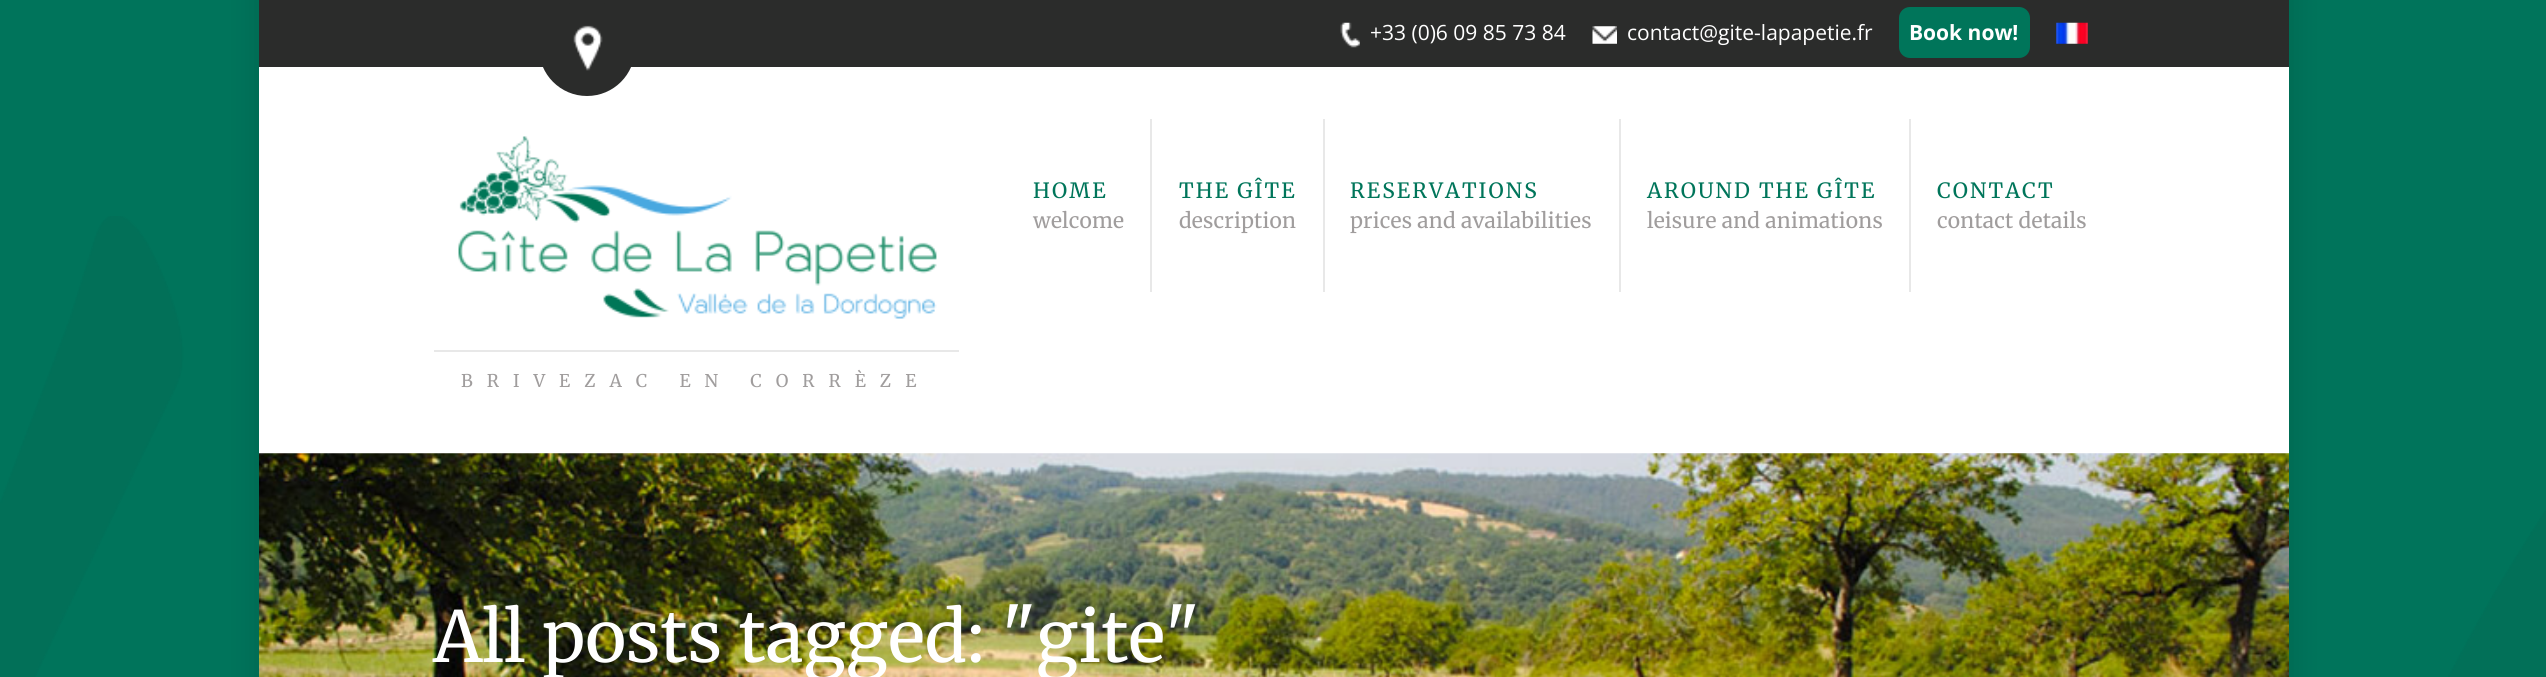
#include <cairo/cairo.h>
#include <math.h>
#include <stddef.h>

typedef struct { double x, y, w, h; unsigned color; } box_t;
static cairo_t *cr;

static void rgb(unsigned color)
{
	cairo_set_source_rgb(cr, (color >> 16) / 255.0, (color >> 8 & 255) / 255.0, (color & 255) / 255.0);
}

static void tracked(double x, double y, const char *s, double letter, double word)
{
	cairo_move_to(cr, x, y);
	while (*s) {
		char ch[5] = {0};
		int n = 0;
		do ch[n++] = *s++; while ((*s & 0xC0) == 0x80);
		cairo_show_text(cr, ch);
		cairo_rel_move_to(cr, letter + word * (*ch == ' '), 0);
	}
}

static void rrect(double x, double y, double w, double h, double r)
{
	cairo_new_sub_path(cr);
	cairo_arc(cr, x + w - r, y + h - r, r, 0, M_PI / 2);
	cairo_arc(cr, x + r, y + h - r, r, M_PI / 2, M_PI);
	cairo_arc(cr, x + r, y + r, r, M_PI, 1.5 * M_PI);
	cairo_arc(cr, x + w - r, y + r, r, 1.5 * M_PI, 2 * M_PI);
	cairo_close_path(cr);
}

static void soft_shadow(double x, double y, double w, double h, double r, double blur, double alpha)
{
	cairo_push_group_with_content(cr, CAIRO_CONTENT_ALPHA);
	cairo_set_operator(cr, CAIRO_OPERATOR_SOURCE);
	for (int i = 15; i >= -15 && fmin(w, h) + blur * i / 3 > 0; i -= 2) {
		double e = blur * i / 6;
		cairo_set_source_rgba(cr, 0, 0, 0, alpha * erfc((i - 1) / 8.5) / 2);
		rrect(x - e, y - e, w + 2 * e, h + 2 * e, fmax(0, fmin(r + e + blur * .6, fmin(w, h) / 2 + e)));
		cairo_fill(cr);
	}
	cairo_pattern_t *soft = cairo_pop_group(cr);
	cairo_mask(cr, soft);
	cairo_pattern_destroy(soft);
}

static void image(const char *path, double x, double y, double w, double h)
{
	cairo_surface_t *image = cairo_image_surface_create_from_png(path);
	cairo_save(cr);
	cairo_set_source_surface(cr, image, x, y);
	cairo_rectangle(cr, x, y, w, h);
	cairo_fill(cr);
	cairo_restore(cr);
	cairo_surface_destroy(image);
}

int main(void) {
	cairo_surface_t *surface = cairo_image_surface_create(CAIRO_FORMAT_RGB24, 2546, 677);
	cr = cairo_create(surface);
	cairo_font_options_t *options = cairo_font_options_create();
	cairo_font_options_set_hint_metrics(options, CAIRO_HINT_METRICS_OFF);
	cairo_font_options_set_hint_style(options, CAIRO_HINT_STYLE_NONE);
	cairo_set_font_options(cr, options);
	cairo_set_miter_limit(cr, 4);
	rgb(0x00745b);
	cairo_paint(cr);
	image("img/1.png", 0, 216, 2546, 461);
	rgb(0x000000);
	soft_shadow(252, -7, 2044, 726, 0, 14, 0.1);
	rgb(0xffffff);
	cairo_rectangle(cr, 259, 67, 2030, 387);
	cairo_fill(cr);
	rgb(0x2b2c2b);
	cairo_rectangle(cr, 259, 0, 2030, 67);
	cairo_fill(cr);
	cairo_arc(cr, 587, 48, 48, 0, 2 * M_PI);
	cairo_fill(cr);
	image("img/2.png", 573, 25, 30, 46);
	image("img/3.png", 1340, 22, 20, 26);
	image("img/4.png", 1592, 26, 25, 18);
	rgb(0x00755a);
	rrect(1899, 7, 131, 51, 11);
	cairo_fill(cr);
	image("img/5.png", 2056, 22, 32, 22);
	{
		static const box_t items[] = {
			{1150, 119, 2, 173, 0xe8e8e8},
			{1323, 119, 2, 173, 0xe8e8e8},
			{1619, 119, 2, 173, 0xe8e8e8},
			{1909, 119, 2, 173, 0xe8e8e8},
		};
		for (size_t i = 0; i < sizeof items / sizeof *items; i++) {
			rgb(items[i].color);
			cairo_rectangle(cr, items[i].x, items[i].y, items[i].w, items[i].h);
			cairo_fill(cr);
		}
	}
	image("img/6.png", 458, 136, 479, 183);
	cairo_rectangle(cr, 434, 350, 525, 2);
	cairo_fill(cr);
	image("img/7.png", 259, 453, 2030, 224);
	cairo_select_font_face(cr, "Open Sans", CAIRO_FONT_SLANT_NORMAL, CAIRO_FONT_WEIGHT_NORMAL);
	cairo_set_font_size(cr, 21);
	rgb(0xffffff);
	cairo_move_to(cr, 1370, 40);
	cairo_show_text(cr, "+33 (0)6 09 85 73 84");
	cairo_move_to(cr, 1627, 40);
	cairo_show_text(cr, "contact@gite-lapapetie.fr");
	cairo_select_font_face(cr, "Open Sans", CAIRO_FONT_SLANT_NORMAL, CAIRO_FONT_WEIGHT_BOLD);
	cairo_move_to(cr, 1909, 40);
	cairo_show_text(cr, "Book now!");
	cairo_select_font_face(cr, "Merriweather", CAIRO_FONT_SLANT_NORMAL, CAIRO_FONT_WEIGHT_NORMAL);
	rgb(0x00755a);
	tracked(1033, 198, "HOME", 2.1, 0);
	rgb(0xa09d9d);
	tracked(1033, 228, "welcome", 0.2, 0);
	rgb(0x00755a);
	tracked(1179, 198, "THE GÎTE", 2.1, 0);
	rgb(0xa09d9d);
	tracked(1179, 228, "description", 0.2, 0);
	rgb(0x00755a);
	tracked(1350, 198, "RESERVATIONS", 2.1, 0);
	rgb(0xa09d9d);
	tracked(1350, 228, "prices and availabilities", 0.2, 0);
	rgb(0x00755a);
	tracked(1647, 198, "AROUND THE GÎTE", 2.1, 0);
	rgb(0xa09d9d);
	tracked(1647, 228, "leisure and animations", 0.2, 0);
	rgb(0x00755a);
	tracked(1937, 198, "CONTACT", 2.1, 0);
	rgb(0xa09d9d);
	tracked(1937, 228, "contact details", 0.2, 0);
	cairo_set_font_size(cr, 17.5);
	tracked(461, 387, "BRIVEZAC EN CORRÈZE", 14, 0);
	cairo_set_font_size(cr, 70);
	rgb(0xffffff);
	cairo_move_to(cr, 433, 662);
	cairo_show_text(cr, "All posts tagged: \"gite\"");
	cairo_surface_write_to_png(surface, "page.png");
	cairo_font_options_destroy(options);
	cairo_destroy(cr);
	cairo_surface_destroy(surface);
	return 0;
}
